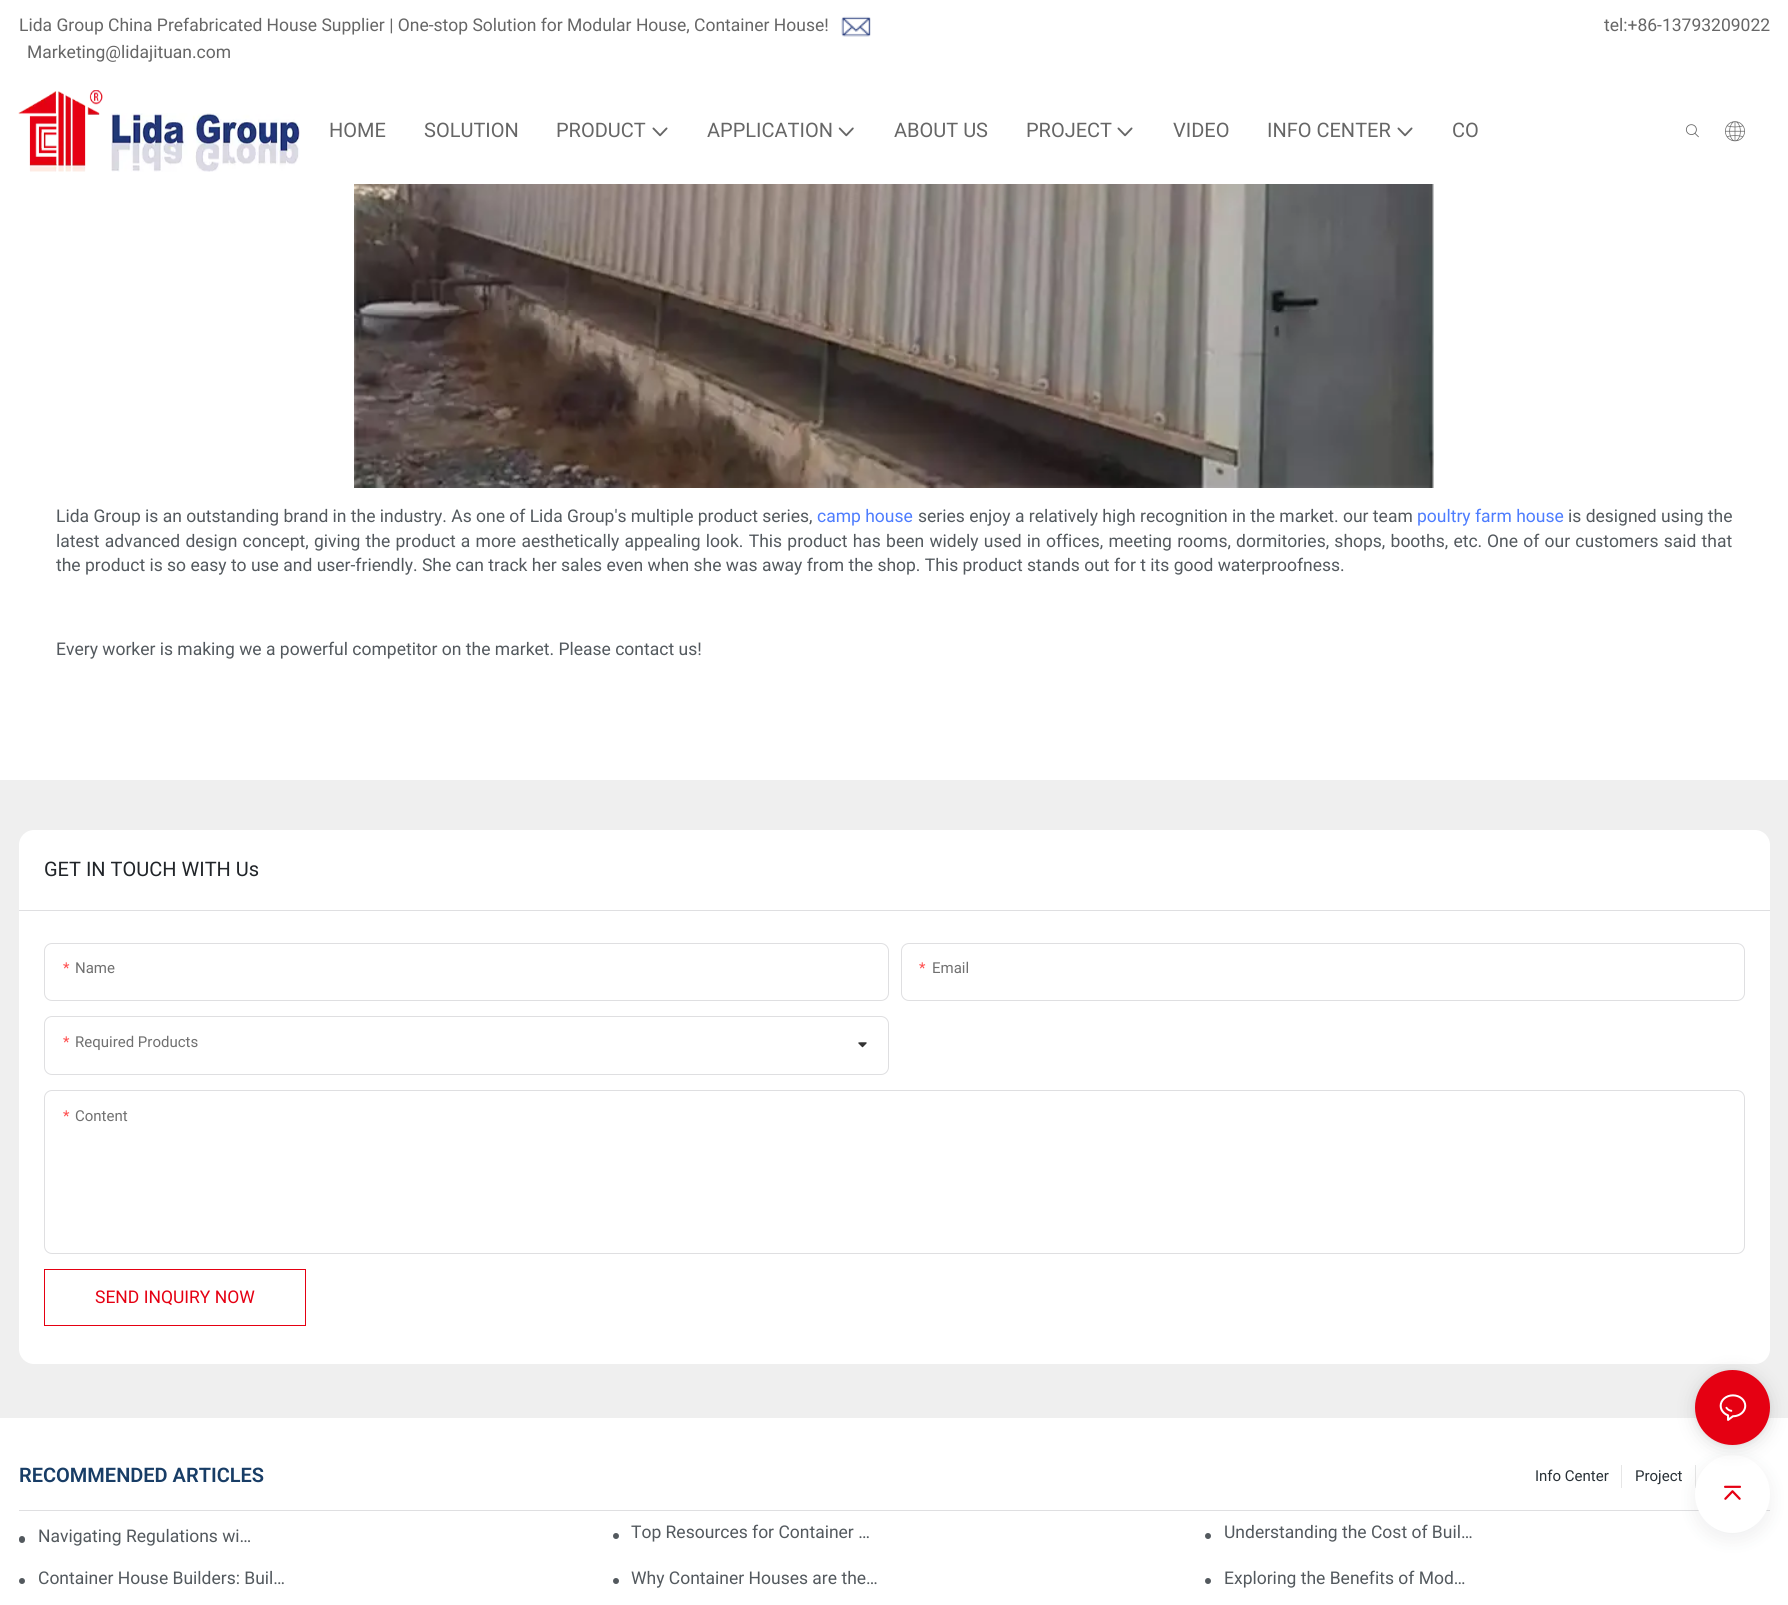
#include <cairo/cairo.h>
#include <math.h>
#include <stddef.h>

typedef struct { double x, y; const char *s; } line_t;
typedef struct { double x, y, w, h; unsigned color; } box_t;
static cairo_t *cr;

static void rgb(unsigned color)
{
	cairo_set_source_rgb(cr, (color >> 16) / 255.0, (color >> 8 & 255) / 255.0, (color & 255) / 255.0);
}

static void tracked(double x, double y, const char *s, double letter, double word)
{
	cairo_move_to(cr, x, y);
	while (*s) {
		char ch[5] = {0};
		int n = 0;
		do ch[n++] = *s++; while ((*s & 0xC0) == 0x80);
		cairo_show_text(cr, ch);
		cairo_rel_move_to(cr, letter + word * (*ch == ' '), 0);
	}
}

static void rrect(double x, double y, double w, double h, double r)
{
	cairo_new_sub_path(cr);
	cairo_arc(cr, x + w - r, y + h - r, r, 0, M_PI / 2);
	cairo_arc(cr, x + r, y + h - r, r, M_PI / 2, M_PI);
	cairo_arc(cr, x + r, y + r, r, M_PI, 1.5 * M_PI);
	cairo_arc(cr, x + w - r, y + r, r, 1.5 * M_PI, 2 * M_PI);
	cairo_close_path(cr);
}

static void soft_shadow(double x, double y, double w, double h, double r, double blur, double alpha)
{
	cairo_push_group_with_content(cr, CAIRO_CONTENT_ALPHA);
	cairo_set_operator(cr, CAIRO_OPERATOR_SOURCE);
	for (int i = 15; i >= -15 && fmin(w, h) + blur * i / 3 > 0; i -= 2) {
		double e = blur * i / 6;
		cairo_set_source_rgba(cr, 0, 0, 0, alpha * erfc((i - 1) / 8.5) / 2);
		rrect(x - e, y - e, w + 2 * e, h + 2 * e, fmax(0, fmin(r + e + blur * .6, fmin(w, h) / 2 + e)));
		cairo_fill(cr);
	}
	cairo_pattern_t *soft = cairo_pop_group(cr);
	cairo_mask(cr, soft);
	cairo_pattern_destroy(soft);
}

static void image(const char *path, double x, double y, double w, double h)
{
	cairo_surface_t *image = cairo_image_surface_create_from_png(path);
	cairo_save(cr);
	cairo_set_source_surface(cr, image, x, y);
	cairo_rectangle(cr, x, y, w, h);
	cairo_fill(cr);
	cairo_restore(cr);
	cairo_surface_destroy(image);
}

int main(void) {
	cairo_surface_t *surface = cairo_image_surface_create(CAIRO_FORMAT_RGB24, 1788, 1605);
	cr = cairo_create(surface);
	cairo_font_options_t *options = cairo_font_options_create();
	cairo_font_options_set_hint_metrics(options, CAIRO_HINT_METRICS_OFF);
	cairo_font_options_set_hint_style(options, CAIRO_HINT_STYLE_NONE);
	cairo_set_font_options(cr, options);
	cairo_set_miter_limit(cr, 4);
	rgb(0xffffff);
	cairo_paint(cr);
	image("img/1.png", 841, 16, 30, 21);
	image("img/2.png", 18, 90, 282, 82);
	image("img/3.png", 652, 127, 16, 10);
	image("img/4.png", 838, 127, 16, 10);
	image("img/3.png", 1117, 127, 16, 10);
	image("img/3.png", 1397, 127, 16, 10);
	image("img/5.png", 1685, 124, 14, 14);
	image("img/6.png", 1725, 121, 20, 21);
	rgb(0xefefef);
	cairo_rectangle(cr, 0, 780, 1788, 638);
	cairo_fill(cr);
	image("img/7.png", 354, 184, 1080, 304);
	rgb(0xffffff);
	rrect(19, 830, 1751, 534, 15);
	cairo_fill(cr);
	rgb(0xdfdfe1);
	cairo_rectangle(cr, 19, 910, 1751, 1);
	cairo_fill(cr);
	rrect(44.5, 943.5, 844, 57, 7.5);
	cairo_set_line_width(cr, 1);
	cairo_stroke(cr);
	rrect(901.5, 943.5, 843, 57, 7.5);
	cairo_stroke(cr);
	rrect(44.5, 1016.5, 844, 58, 7.5);
	cairo_stroke(cr);
	image("img/8.png", 858, 1042, 9, 6);
	rrect(44.5, 1090.5, 1700, 163, 7.5);
	cairo_stroke(cr);
	cairo_rectangle(cr, 44.5, 1269.5, 261, 56);
	rgb(0xe50012);
	cairo_stroke(cr);
	{
		static const box_t items[] = {
			{19, 1510, 1751, 1, 0xdfdfe1},
			{1621, 1465, 1, 23, 0xe6e6e6},
			{1695, 1465, 1, 23, 0xe6e6e6},
		};
		for (size_t i = 0; i < sizeof items / sizeof *items; i++) {
			rgb(items[i].color);
			cairo_rectangle(cr, items[i].x, items[i].y, items[i].w, items[i].h);
			cairo_fill(cr);
		}
	}
	rrect(20.5, 1537.5, 3, 4, 1.5);
	rgb(0x53595e);
	cairo_set_line_width(cr, 3);
	cairo_stroke(cr);
	cairo_arc(cr, 616, 1536, 1.5, 0, 2 * M_PI);
	cairo_stroke(cr);
	cairo_arc(cr, 1208, 1536, 1.5, 0, 2 * M_PI);
	cairo_stroke(cr);
	cairo_arc(cr, 22, 1581, 1.5, 0, 2 * M_PI);
	cairo_stroke(cr);
	cairo_arc(cr, 616, 1581, 1.5, 0, 2 * M_PI);
	cairo_stroke(cr);
	cairo_arc(cr, 1208, 1581, 1.5, 0, 2 * M_PI);
	cairo_stroke(cr);
	rgb(0x282f36);
	soft_shadow(1695, 1461, 75, 78, 37.5, 9.5, 0.08);
	rgb(0xffffff);
	cairo_new_path(cr);
	cairo_move_to(cr, 1732.5, 1455);
	cairo_curve_to(cr, 1753, 1455, 1770, 1472.5, 1770, 1494);
	cairo_curve_to(cr, 1770, 1515.5, 1753, 1533, 1732.5, 1533);
	cairo_curve_to(cr, 1712, 1533, 1695, 1515.5, 1695, 1494);
	cairo_curve_to(cr, 1695, 1472.5, 1712, 1455, 1732.5, 1455);
	cairo_close_path(cr);
	cairo_fill(cr);
	rgb(0x000000);
	soft_shadow(1695, 1373, 75, 75, 37.5, 10, 0.12);
	soft_shadow(1695, 1371, 75, 75, 37.5, 2.5, 0.06);
	rgb(0xe50012);
	cairo_arc(cr, 1732.5, 1407.5, 37.5, 0, 2 * M_PI);
	cairo_fill(cr);
	image("img/9.png", 1719, 1394, 28, 27);
	image("img/10.png", 1724, 1485, 17, 15);
	cairo_select_font_face(cr, "Roboto", CAIRO_FONT_SLANT_NORMAL, CAIRO_FONT_WEIGHT_NORMAL);
	cairo_set_font_size(cr, 17.5);
	rgb(0x666666);
	{
		static const line_t items[] = {
			{19, 31, "Lida Group China Prefabricated House Supplier | One-stop Solution for Modular House, Container House!"},
			{27, 58, "Marketing@lidajituan.com"},
			{1604, 31, "tel:+86-13793209022"},
		};
		for (size_t i = 0; i < sizeof items / sizeof *items; i++) {
			cairo_move_to(cr, items[i].x, items[i].y);
			cairo_show_text(cr, items[i].s);
		}
	}
	cairo_set_font_size(cr, 20);
	{
		static const line_t items[] = {
			{329, 137, "HOME"},
			{424, 137, "SOLUTION"},
			{556, 137, "PRODUCT"},
			{707, 137, "APPLICATION"},
			{894, 137, "ABOUT US"},
			{1026, 137, "PROJECT"},
			{1173, 137, "VIDEO"},
			{1267, 137, "INFO CENTER"},
			{1452, 137, "CO"},
		};
		for (size_t i = 0; i < sizeof items / sizeof *items; i++) {
			cairo_move_to(cr, items[i].x, items[i].y);
			cairo_show_text(cr, items[i].s);
		}
	}
	cairo_set_font_size(cr, 17.5);
	rgb(0x53595e);
	cairo_move_to(cr, 56, 522);
	cairo_show_text(cr, "Lida Group is an outstanding brand in the industry. As one of Lida Group's multiple product series,");
	rgb(0x4d7cfe);
	cairo_move_to(cr, 817, 522);
	cairo_show_text(cr, "camp house");
	rgb(0x53595e);
	cairo_move_to(cr, 918, 522);
	cairo_show_text(cr, "series enjoy a relatively high recognition in the market. our team");
	rgb(0x4d7cfe);
	cairo_move_to(cr, 1417, 522);
	cairo_show_text(cr, "poultry farm house");
	rgb(0x53595e);
	cairo_move_to(cr, 1568, 522);
	cairo_show_text(cr, "is designed using the");
	tracked(56, 547, "latest advanced design concept, giving the product a more aesthetically appealing look. This product has been widely used in offices, meeting rooms, dormitories, shops, booths, etc.", 0, 0.9);
	tracked(1487, 547, "One of our customers said that", 0, 0.9);
	cairo_move_to(cr, 56, 571);
	cairo_show_text(cr, "the product is so easy to use and user-friendly. She can track her sales even when she was away from the shop. This product stands out for t its good waterproofness.");
	cairo_move_to(cr, 56, 655);
	cairo_show_text(cr, "Every worker is making we a powerful competitor on the market. Please contact us!");
	cairo_set_font_size(cr, 20);
	rgb(0x212529);
	cairo_move_to(cr, 44, 876);
	cairo_show_text(cr, "GET IN TOUCH WITH Us");
	cairo_set_font_size(cr, 15);
	rgb(0xff4d4d);
	cairo_move_to(cr, 63, 973);
	cairo_show_text(cr, "*");
	rgb(0x707070);
	cairo_move_to(cr, 75, 973);
	cairo_show_text(cr, "Name");
	rgb(0xff4d4d);
	cairo_move_to(cr, 919, 973);
	cairo_show_text(cr, "*");
	rgb(0x707070);
	cairo_move_to(cr, 932, 973);
	cairo_show_text(cr, "Email");
	rgb(0xff4d4d);
	cairo_move_to(cr, 63, 1047);
	cairo_show_text(cr, "*");
	rgb(0x707070);
	cairo_move_to(cr, 75, 1047);
	cairo_show_text(cr, "Required Products");
	rgb(0xff4d4d);
	cairo_move_to(cr, 63, 1121);
	cairo_show_text(cr, "*");
	rgb(0x707070);
	cairo_move_to(cr, 75, 1121);
	cairo_show_text(cr, "Content");
	cairo_set_font_size(cr, 17.5);
	rgb(0xe50012);
	cairo_move_to(cr, 95, 1303);
	cairo_show_text(cr, "SEND INQUIRY NOW");
	cairo_select_font_face(cr, "Roboto SemiBold", CAIRO_FONT_SLANT_NORMAL, CAIRO_FONT_WEIGHT_NORMAL);
	cairo_set_font_size(cr, 20);
	rgb(0x183d66);
	cairo_move_to(cr, 19, 1482);
	cairo_show_text(cr, "RECOMMENDED ARTICLES");
	cairo_select_font_face(cr, "Roboto", CAIRO_FONT_SLANT_NORMAL, CAIRO_FONT_WEIGHT_NORMAL);
	cairo_set_font_size(cr, 15);
	rgb(0x283036);
	cairo_move_to(cr, 1535, 1481);
	cairo_show_text(cr, "Info Center");
	cairo_move_to(cr, 1635, 1481);
	cairo_show_text(cr, "Project");
	cairo_set_font_size(cr, 17.5);
	rgb(0x53595e);
	{
		static const line_t items[] = {
			{38, 1542, "Navigating Regulations wi…"},
			{631, 1538, "Top Resources for Container …"},
			{1224, 1538, "Understanding the Cost of Buil…"},
			{38, 1584, "Container House Builders: Buil…"},
			{631, 1584, "Why Container Houses are the…"},
			{1224, 1584, "Exploring the Benefits of Mod…"},
		};
		for (size_t i = 0; i < sizeof items / sizeof *items; i++) {
			cairo_move_to(cr, items[i].x, items[i].y);
			cairo_show_text(cr, items[i].s);
		}
	}
	cairo_surface_write_to_png(surface, "page.png");
	cairo_font_options_destroy(options);
	cairo_destroy(cr);
	cairo_surface_destroy(surface);
	return 0;
}
